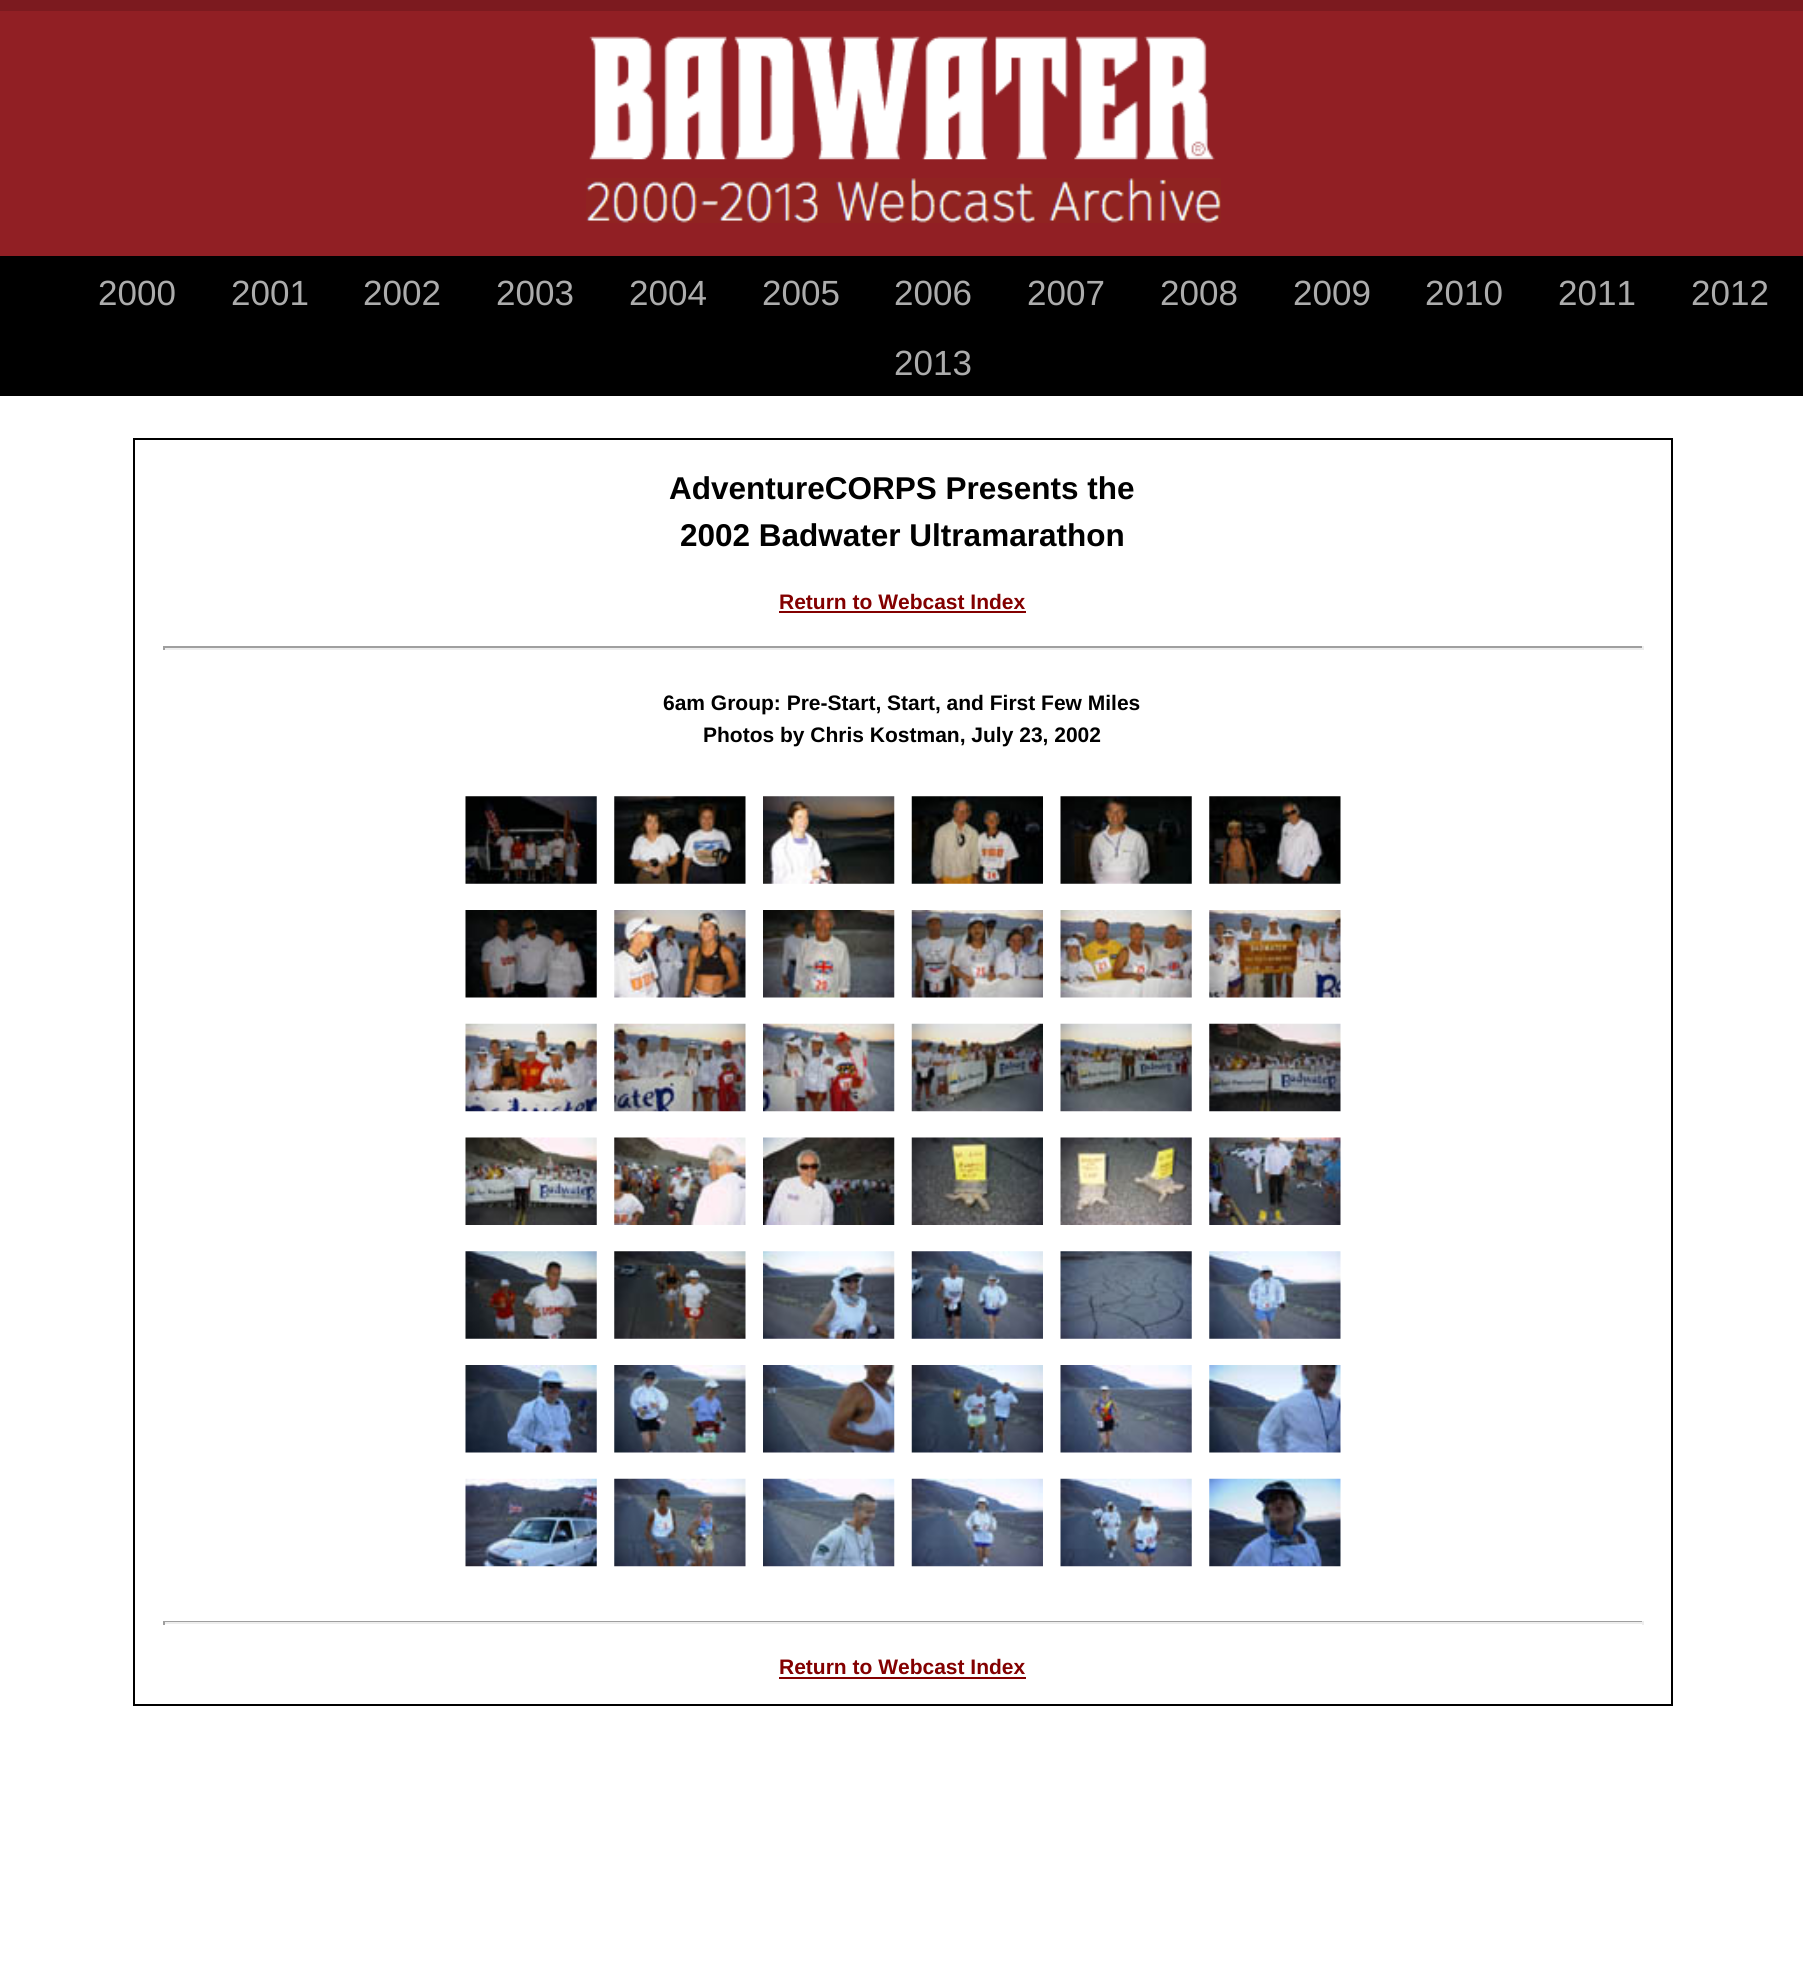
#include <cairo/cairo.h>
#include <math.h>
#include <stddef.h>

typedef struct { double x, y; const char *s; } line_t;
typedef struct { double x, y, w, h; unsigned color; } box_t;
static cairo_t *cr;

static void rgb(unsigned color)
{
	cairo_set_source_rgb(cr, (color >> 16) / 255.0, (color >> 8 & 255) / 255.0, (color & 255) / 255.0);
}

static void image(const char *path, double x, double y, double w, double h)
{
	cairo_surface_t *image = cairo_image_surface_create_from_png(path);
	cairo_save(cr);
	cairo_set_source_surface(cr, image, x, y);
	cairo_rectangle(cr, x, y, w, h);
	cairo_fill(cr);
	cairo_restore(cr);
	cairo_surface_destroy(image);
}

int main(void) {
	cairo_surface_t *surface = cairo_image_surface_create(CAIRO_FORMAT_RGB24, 1803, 1978);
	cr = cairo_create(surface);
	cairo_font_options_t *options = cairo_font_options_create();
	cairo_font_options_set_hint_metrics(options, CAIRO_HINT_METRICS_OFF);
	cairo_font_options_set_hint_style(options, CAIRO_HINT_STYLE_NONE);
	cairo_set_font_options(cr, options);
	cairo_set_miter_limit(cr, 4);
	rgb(0xffffff);
	cairo_paint(cr);
	rgb(0x911f24);
	cairo_rectangle(cr, 0, 11, 1803, 245);
	cairo_fill(cr);
	rgb(0x7c1a1f);
	cairo_rectangle(cr, 0, 0, 1803, 11);
	cairo_fill(cr);
	image("img/1.png", 589, 36, 626, 124);
	image("img/2.png", 586, 178, 635, 45);
	rgb(0x000000);
	cairo_rectangle(cr, 0, 256, 1803, 140);
	cairo_fill(cr);
	cairo_rectangle(cr, 134, 439, 1538, 1266);
	cairo_stroke(cr);
	{
		static const box_t items[] = {
			{779, 611, 247, 2, 0x830000},
			{163, 646, 1480, 2, 0x9f9f9f},
			{1642, 646, 2, 4, 0xeeeeee},
			{163, 648, 1480, 2, 0xeeeeee},
			{163, 646, 2, 4, 0x9f9f9f},
		};
		for (size_t i = 0; i < sizeof items / sizeof *items; i++) {
			rgb(items[i].color);
			cairo_rectangle(cr, items[i].x, items[i].y, items[i].w, items[i].h);
			cairo_fill(cr);
		}
	}
	image("img/3.png", 465, 796, 132, 88);
	image("img/4.png", 614, 796, 132, 88);
	image("img/5.png", 763, 796, 132, 88);
	image("img/6.png", 911, 796, 132, 88);
	image("img/7.png", 1060, 796, 132, 88);
	image("img/8.png", 1209, 796, 132, 88);
	image("img/9.png", 465, 910, 132, 88);
	image("img/10.png", 614, 910, 132, 88);
	image("img/11.png", 763, 910, 132, 88);
	image("img/12.png", 911, 910, 132, 88);
	image("img/13.png", 1060, 910, 132, 88);
	image("img/14.png", 1209, 910, 132, 88);
	image("img/15.png", 465, 1023, 132, 89);
	image("img/16.png", 614, 1023, 132, 89);
	image("img/17.png", 763, 1023, 132, 89);
	image("img/18.png", 911, 1023, 132, 89);
	image("img/19.png", 1060, 1023, 132, 89);
	image("img/20.png", 1209, 1023, 132, 89);
	image("img/21.png", 465, 1137, 132, 88);
	image("img/22.png", 614, 1137, 132, 88);
	image("img/23.png", 763, 1137, 132, 88);
	image("img/24.png", 911, 1137, 132, 88);
	image("img/25.png", 1060, 1137, 132, 88);
	image("img/26.png", 1209, 1137, 132, 88);
	image("img/27.png", 465, 1251, 132, 88);
	image("img/28.png", 614, 1251, 132, 88);
	image("img/29.png", 763, 1251, 132, 88);
	image("img/30.png", 911, 1251, 132, 88);
	image("img/31.png", 1060, 1251, 132, 88);
	image("img/32.png", 1209, 1251, 132, 88);
	image("img/33.png", 465, 1365, 132, 88);
	image("img/34.png", 614, 1365, 132, 88);
	image("img/35.png", 763, 1365, 132, 88);
	image("img/36.png", 911, 1365, 132, 88);
	image("img/37.png", 1060, 1365, 132, 88);
	image("img/38.png", 1209, 1365, 132, 88);
	image("img/39.png", 465, 1478, 132, 89);
	image("img/40.png", 614, 1478, 132, 89);
	image("img/41.png", 763, 1478, 132, 89);
	image("img/42.png", 911, 1478, 132, 89);
	image("img/43.png", 1060, 1478, 132, 89);
	image("img/44.png", 1209, 1478, 132, 89);
	{
		static const box_t items[] = {
			{163, 1621, 1480, 1, 0x9f9f9f},
			{1642, 1621, 2, 4, 0xeeeeee},
			{163, 1622, 1480, 2, 0xeeeeee},
			{163, 1621, 2, 4, 0x9f9f9f},
			{779, 1677, 247, 2, 0x830000},
		};
		for (size_t i = 0; i < sizeof items / sizeof *items; i++) {
			rgb(items[i].color);
			cairo_rectangle(cr, items[i].x, items[i].y, items[i].w, items[i].h);
			cairo_fill(cr);
		}
	}
	cairo_select_font_face(cr, "Liberation Sans", CAIRO_FONT_SLANT_NORMAL, CAIRO_FONT_WEIGHT_NORMAL);
	cairo_set_font_size(cr, 35);
	rgb(0xacacac);
	{
		static const line_t items[] = {
			{98, 305, "2000"},
			{231, 305, "2001"},
			{363, 305, "2002"},
			{496, 305, "2003"},
			{629, 305, "2004"},
			{762, 305, "2005"},
			{894, 305, "2006"},
			{1027, 305, "2007"},
			{1160, 305, "2008"},
			{1293, 305, "2009"},
			{1425, 305, "2010"},
			{1558, 305, "2011"},
			{1691, 305, "2012"},
			{894, 375, "2013"},
		};
		for (size_t i = 0; i < sizeof items / sizeof *items; i++) {
			cairo_move_to(cr, items[i].x, items[i].y);
			cairo_show_text(cr, items[i].s);
		}
	}
	cairo_select_font_face(cr, "Liberation Sans", CAIRO_FONT_SLANT_NORMAL, CAIRO_FONT_WEIGHT_BOLD);
	cairo_set_font_size(cr, 31.5);
	rgb(0x000000);
	cairo_move_to(cr, 669, 499);
	cairo_show_text(cr, "AdventureCORPS Presents the");
	cairo_move_to(cr, 680, 546);
	cairo_show_text(cr, "2002 Badwater Ultramarathon");
	cairo_set_font_size(cr, 21);
	rgb(0x830000);
	cairo_move_to(cr, 779, 609);
	cairo_show_text(cr, "Return to Webcast Index");
	rgb(0x000000);
	cairo_move_to(cr, 663, 710);
	cairo_show_text(cr, "6am Group: Pre-Start, Start, and First Few Miles");
	cairo_move_to(cr, 703, 742);
	cairo_show_text(cr, "Photos by Chris Kostman, July 23, 2002");
	rgb(0x830000);
	cairo_move_to(cr, 779, 1674);
	cairo_show_text(cr, "Return to Webcast Index");
	cairo_surface_write_to_png(surface, "page.png");
	cairo_font_options_destroy(options);
	cairo_destroy(cr);
	cairo_surface_destroy(surface);
	return 0;
}
